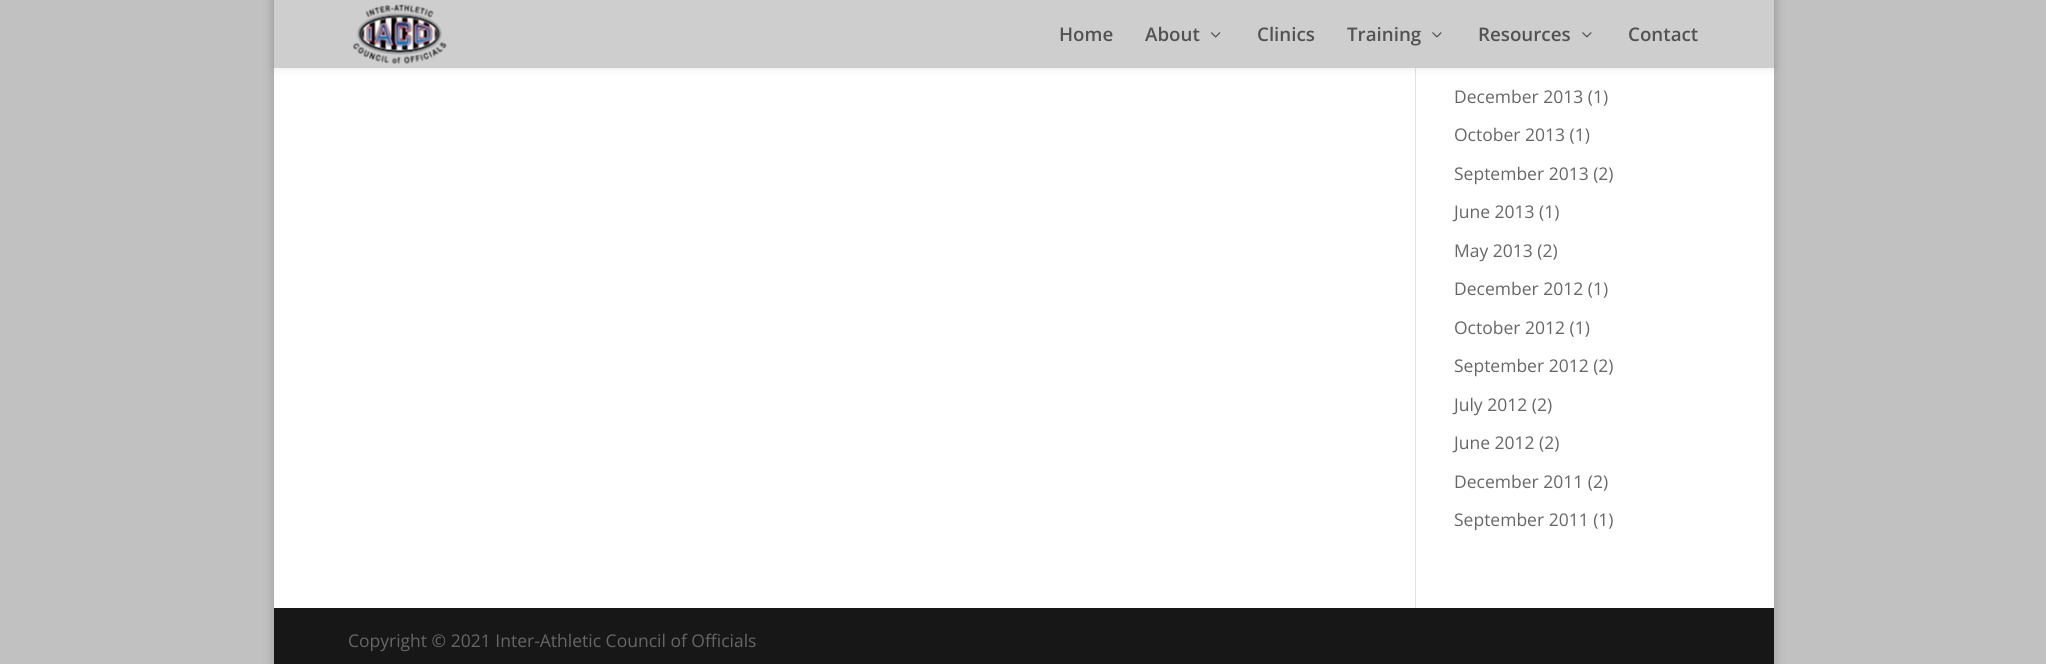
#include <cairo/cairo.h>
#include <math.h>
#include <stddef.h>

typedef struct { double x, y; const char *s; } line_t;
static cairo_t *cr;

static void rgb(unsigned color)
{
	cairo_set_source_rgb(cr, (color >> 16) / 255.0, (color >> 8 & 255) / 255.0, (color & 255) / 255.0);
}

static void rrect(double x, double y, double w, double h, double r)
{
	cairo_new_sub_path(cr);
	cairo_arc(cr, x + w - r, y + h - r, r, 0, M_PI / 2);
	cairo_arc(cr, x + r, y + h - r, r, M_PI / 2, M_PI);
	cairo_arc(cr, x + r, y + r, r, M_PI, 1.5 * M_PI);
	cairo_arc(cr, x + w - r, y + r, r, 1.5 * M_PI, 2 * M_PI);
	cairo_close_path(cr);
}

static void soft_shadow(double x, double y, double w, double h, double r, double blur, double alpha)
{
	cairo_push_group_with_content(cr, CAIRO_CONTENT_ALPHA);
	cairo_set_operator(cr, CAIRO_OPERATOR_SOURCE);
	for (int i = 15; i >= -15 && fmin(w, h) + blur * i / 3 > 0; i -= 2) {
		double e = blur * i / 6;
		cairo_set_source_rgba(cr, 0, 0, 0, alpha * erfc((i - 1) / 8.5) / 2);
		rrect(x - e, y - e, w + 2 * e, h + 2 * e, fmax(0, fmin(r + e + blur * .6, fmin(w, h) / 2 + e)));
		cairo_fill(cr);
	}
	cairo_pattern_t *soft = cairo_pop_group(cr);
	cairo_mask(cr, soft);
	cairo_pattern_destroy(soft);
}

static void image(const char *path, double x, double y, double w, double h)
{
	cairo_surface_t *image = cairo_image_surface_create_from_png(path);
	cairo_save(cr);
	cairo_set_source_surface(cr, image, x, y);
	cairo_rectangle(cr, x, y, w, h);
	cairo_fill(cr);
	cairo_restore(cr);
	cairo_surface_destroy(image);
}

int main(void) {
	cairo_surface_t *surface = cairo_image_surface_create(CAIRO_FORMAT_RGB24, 2046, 664);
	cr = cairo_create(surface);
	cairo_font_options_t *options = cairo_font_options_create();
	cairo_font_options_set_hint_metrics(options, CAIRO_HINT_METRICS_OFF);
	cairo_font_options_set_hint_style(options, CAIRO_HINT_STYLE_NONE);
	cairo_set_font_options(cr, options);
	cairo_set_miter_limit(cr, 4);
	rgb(0xc1c1c1);
	cairo_paint(cr);
	rgb(0x000000);
	soft_shadow(274, -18, 1500, 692, 0, 6, 0.2);
	rgb(0xffffff);
	cairo_rectangle(cr, 274, 68, 1500, 540);
	cairo_fill(cr);
	rgb(0xe2e2e2);
	cairo_rectangle(cr, 1415, 68, 1, 540);
	cairo_fill(cr);
	rgb(0x000000);
	soft_shadow(274, 0, 1500, 68, 0, 4.5, 0.1);
	rgb(0xcecece);
	cairo_rectangle(cr, 274, 0, 1500, 68);
	cairo_fill(cr);
	image("img/1.png", 353, 4, 94, 60);
	image("img/2.png", 1211, 32, 10, 6);
	image("img/3.png", 1432, 32, 10, 6);
	image("img/3.png", 1582, 32, 10, 6);
	rgb(0x171717);
	cairo_rectangle(cr, 274, 608, 1500, 56);
	cairo_fill(cr);
	cairo_select_font_face(cr, "Open Sans SemiBold", CAIRO_FONT_SLANT_NORMAL, CAIRO_FONT_WEIGHT_NORMAL);
	cairo_set_font_size(cr, 18.75);
	rgb(0x525252);
	{
		static const line_t items[] = {
			{1059, 41, "Home"},
			{1145, 41, "About"},
			{1257, 41, "Clinics"},
			{1347, 41, "Training"},
			{1478, 41, "Resources"},
			{1628, 41, "Contact"},
		};
		for (size_t i = 0; i < sizeof items / sizeof *items; i++) {
			cairo_move_to(cr, items[i].x, items[i].y);
			cairo_show_text(cr, items[i].s);
		}
	}
	cairo_select_font_face(cr, "Open Sans", CAIRO_FONT_SLANT_NORMAL, CAIRO_FONT_WEIGHT_NORMAL);
	cairo_set_font_size(cr, 17.5);
	rgb(0x666666);
	{
		static const line_t items[] = {
			{1454, 103, "December 2013 (1)"},
			{1454, 141, "October 2013 (1)"},
			{1454, 180, "September 2013 (2)"},
			{1454, 218, "June 2013 (1)"},
			{1454, 257, "May 2013 (2)"},
			{1454, 295, "December 2012 (1)"},
			{1454, 334, "October 2012 (1)"},
			{1454, 372, "September 2012 (2)"},
			{1454, 411, "July 2012 (2)"},
			{1454, 449, "June 2012 (2)"},
			{1454, 488, "December 2011 (2)"},
			{1454, 526, "September 2011 (1)"},
			{348, 647, "Copyright © 2021 Inter-Athletic Council of Officials"},
		};
		for (size_t i = 0; i < sizeof items / sizeof *items; i++) {
			cairo_move_to(cr, items[i].x, items[i].y);
			cairo_show_text(cr, items[i].s);
		}
	}
	cairo_surface_write_to_png(surface, "page.png");
	cairo_font_options_destroy(options);
	cairo_destroy(cr);
	cairo_surface_destroy(surface);
	return 0;
}
